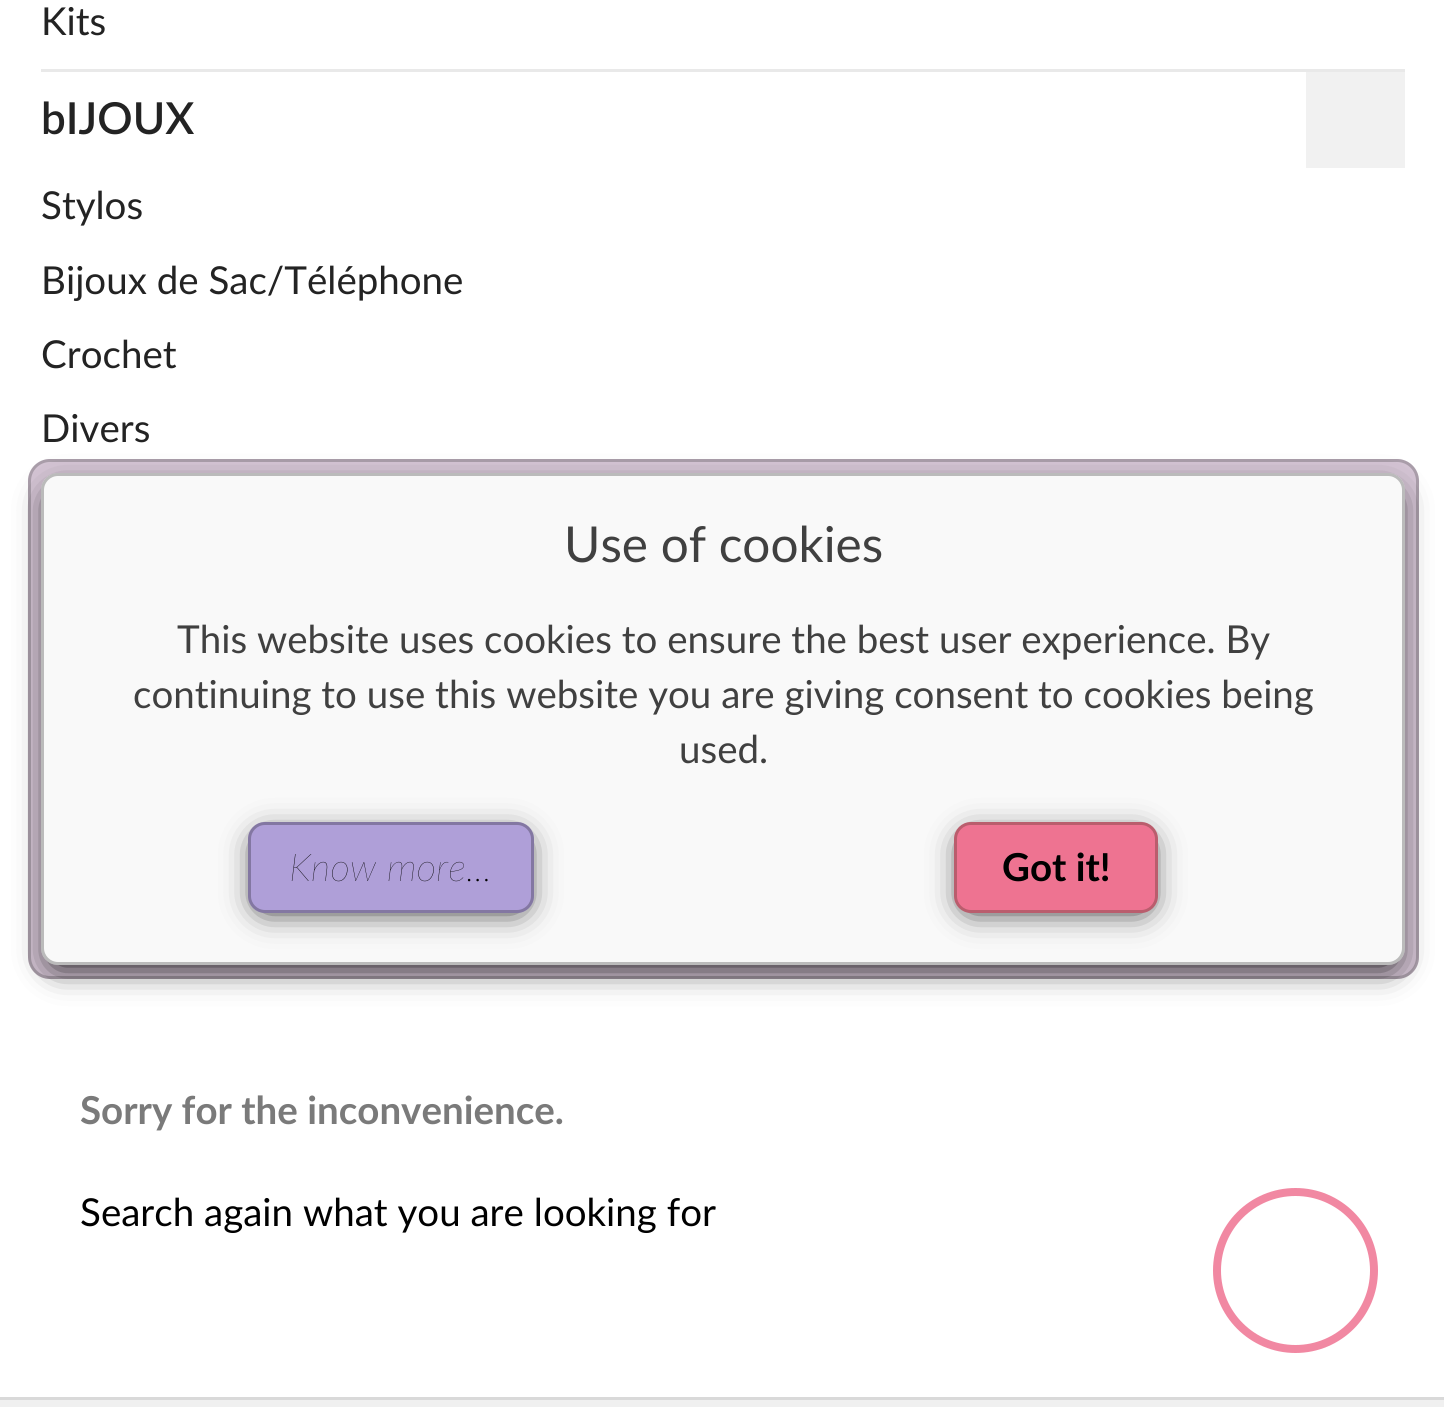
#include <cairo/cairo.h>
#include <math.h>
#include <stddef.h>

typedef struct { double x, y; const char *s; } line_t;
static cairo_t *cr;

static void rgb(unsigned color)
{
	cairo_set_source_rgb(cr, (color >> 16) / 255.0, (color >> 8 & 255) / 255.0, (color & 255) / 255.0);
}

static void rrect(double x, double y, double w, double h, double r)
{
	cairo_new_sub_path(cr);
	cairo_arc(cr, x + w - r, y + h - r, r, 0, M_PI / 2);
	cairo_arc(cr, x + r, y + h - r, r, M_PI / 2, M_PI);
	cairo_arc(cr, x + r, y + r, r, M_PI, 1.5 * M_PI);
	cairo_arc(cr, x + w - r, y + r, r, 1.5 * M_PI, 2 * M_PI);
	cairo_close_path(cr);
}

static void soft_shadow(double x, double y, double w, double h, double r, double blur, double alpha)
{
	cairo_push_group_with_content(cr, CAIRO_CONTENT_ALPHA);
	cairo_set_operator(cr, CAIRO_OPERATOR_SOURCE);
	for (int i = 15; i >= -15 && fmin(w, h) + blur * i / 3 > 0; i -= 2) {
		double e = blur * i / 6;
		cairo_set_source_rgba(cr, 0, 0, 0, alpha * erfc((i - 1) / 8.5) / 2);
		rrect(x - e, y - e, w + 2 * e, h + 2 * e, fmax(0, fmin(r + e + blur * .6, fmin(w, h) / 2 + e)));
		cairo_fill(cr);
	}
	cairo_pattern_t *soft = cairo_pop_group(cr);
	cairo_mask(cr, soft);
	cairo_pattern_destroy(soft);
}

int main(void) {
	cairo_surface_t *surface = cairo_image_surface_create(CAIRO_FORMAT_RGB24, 1444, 1407);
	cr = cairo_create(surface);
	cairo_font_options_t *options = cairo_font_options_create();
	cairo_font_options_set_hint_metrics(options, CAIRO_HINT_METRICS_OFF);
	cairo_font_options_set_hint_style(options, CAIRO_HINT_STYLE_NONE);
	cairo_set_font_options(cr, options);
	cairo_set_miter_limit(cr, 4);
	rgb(0xffffff);
	cairo_paint(cr);
	rgb(0xe9e9e9);
	cairo_rectangle(cr, 41, 69, 1364, 3);
	cairo_fill(cr);
	rgb(0xf1f1f1);
	cairo_rectangle(cr, 1306, 72, 99, 96);
	cairo_fill(cr);
	cairo_set_source_rgba(cr, 0.345, 0.094, 0.345, 0.25);
	rrect(28, 459, 1391, 520, 22);
	cairo_fill(cr);
	rrect(29.5, 460.5, 1388, 517, 20.5);
	cairo_set_source_rgba(cr, 0, 0, 0, 0.2);
	cairo_set_line_width(cr, 3);
	cairo_stroke(cr);
	rgb(0x000000);
	soft_shadow(52, 495, 1342, 470, 6, 16.5, 1);
	rgb(0xf9f9f9);
	rrect(41, 473, 1364, 492, 17);
	cairo_fill(cr);
	rrect(42.5, 474.5, 1361, 489, 15.5);
	cairo_set_source_rgba(cr, 0, 0, 0, 0.25);
	cairo_stroke(cr);
	rgb(0x000000);
	soft_shadow(259, 839, 264, 69, 6, 16.5, 1);
	rgb(0xaf9fd8);
	rrect(248, 822, 286, 91, 17);
	cairo_fill(cr);
	rrect(249.5, 823.5, 283, 88, 15.5);
	cairo_set_source_rgba(cr, 0, 0, 0, 0.25);
	cairo_stroke(cr);
	rgb(0x000000);
	soft_shadow(965, 839, 182, 69, 6, 16.5, 1);
	rgb(0xee7391);
	rrect(955.5, 823.5, 201, 88, 15.5);
	cairo_fill_preserve(cr);
	rgb(0xba5d6d);
	cairo_stroke(cr);
	rgb(0xf0f0f0);
	cairo_rectangle(cr, 0, 1400, 1444, 7);
	cairo_fill(cr);
	rgb(0xd9d9d9);
	cairo_rectangle(cr, 0, 1397, 1444, 3);
	cairo_fill(cr);
	cairo_arc(cr, 1295.5, 1270.5, 78.5, 0, 2 * M_PI);
	rgb(0xf188a2);
	cairo_set_line_width(cr, 8);
	cairo_stroke(cr);
	cairo_select_font_face(cr, "Lato", CAIRO_FONT_SLANT_NORMAL, CAIRO_FONT_WEIGHT_NORMAL);
	cairo_set_font_size(cr, 38.5);
	rgb(0x232323);
	cairo_move_to(cr, 41, 35);
	cairo_show_text(cr, "Kits");
	cairo_select_font_face(cr, "Lato SemiBold", CAIRO_FONT_SLANT_NORMAL, CAIRO_FONT_WEIGHT_NORMAL);
	cairo_set_font_size(cr, 44);
	cairo_move_to(cr, 41, 134);
	cairo_show_text(cr, "bIJOUX");
	cairo_select_font_face(cr, "Lato", CAIRO_FONT_SLANT_NORMAL, CAIRO_FONT_WEIGHT_NORMAL);
	cairo_set_font_size(cr, 38.5);
	{
		static const line_t items[] = {
			{41, 219, "Stylos"},
			{41, 294, "Bijoux de Sac/Téléphone"},
			{41, 368, "Crochet"},
			{41, 442, "Divers"},
		};
		for (size_t i = 0; i < sizeof items / sizeof *items; i++) {
			cairo_move_to(cr, items[i].x, items[i].y);
			cairo_show_text(cr, items[i].s);
		}
	}
	cairo_select_font_face(cr, "Lato", CAIRO_FONT_SLANT_NORMAL, CAIRO_FONT_WEIGHT_BOLD);
	rgb(0x7a7a7a);
	cairo_move_to(cr, 80, 1124);
	cairo_show_text(cr, "Sorry for the inconvenience.");
	cairo_select_font_face(cr, "Lato", CAIRO_FONT_SLANT_NORMAL, CAIRO_FONT_WEIGHT_NORMAL);
	rgb(0x000000);
	cairo_move_to(cr, 80, 1226);
	cairo_show_text(cr, "Search again what you are looking for");
	cairo_set_font_size(cr, 49.5);
	rgb(0x404040);
	cairo_move_to(cr, 564, 562);
	cairo_show_text(cr, "Use of cookies");
	cairo_set_font_size(cr, 38.5);
	{
		static const line_t items[] = {
			{177, 653, "This website uses cookies to ensure the best user experience. By"},
			{133, 708, "continuing to use this website you are giving consent to cookies being"},
			{679, 763, "used."},
		};
		for (size_t i = 0; i < sizeof items / sizeof *items; i++) {
			cairo_move_to(cr, items[i].x, items[i].y);
			cairo_show_text(cr, items[i].s);
		}
	}
	cairo_select_font_face(cr, "Lato ExtraLight", CAIRO_FONT_SLANT_ITALIC, CAIRO_FONT_WEIGHT_NORMAL);
	rgb(0x000000);
	cairo_move_to(cr, 289, 881);
	cairo_show_text(cr, "Know more...");
	cairo_select_font_face(cr, "Lato", CAIRO_FONT_SLANT_NORMAL, CAIRO_FONT_WEIGHT_BOLD);
	cairo_move_to(cr, 1002, 881);
	cairo_show_text(cr, "Got it!");
	cairo_surface_write_to_png(surface, "page.png");
	cairo_font_options_destroy(options);
	cairo_destroy(cr);
	cairo_surface_destroy(surface);
	return 0;
}
